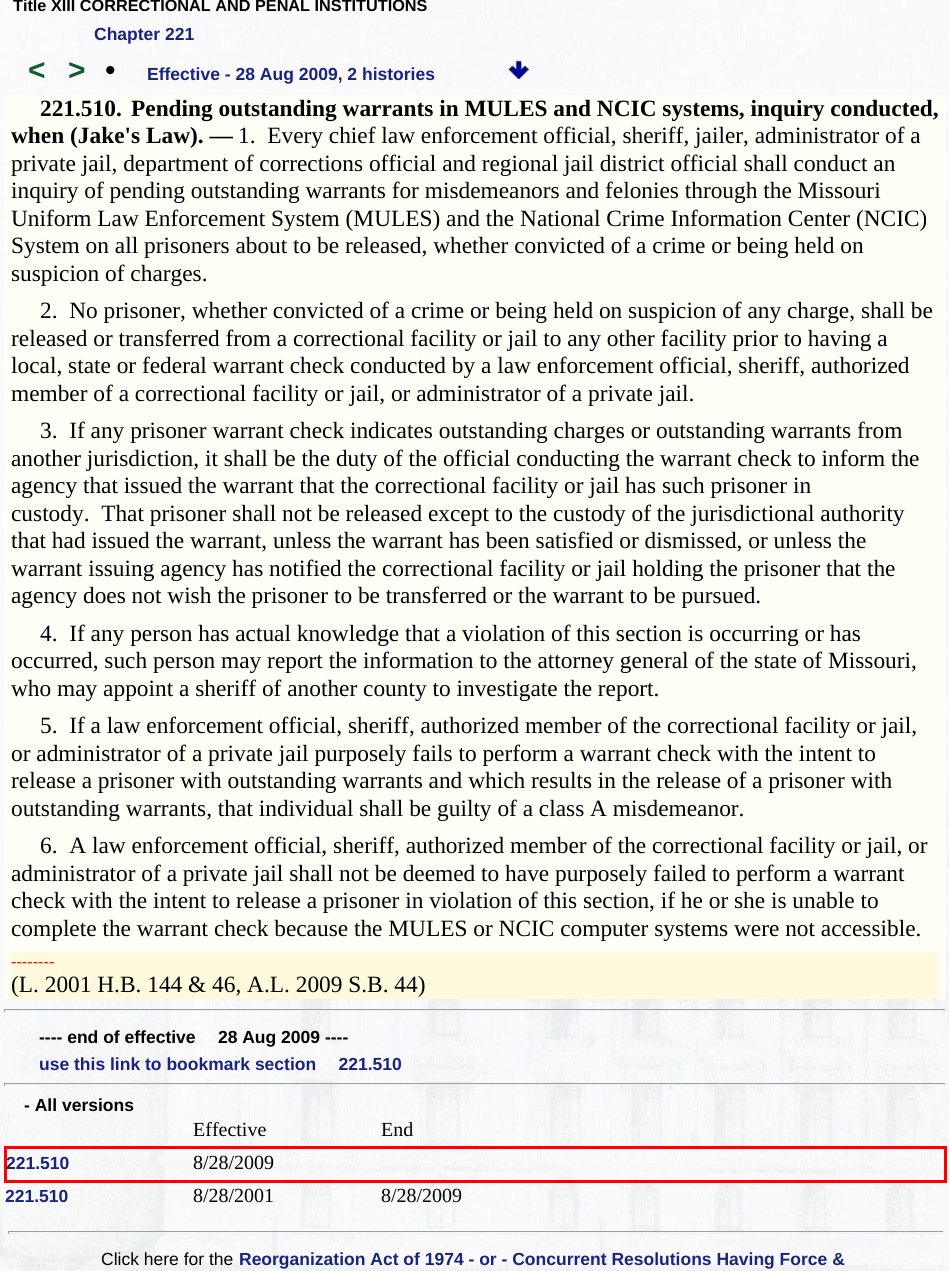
#include <cairo/cairo.h>
#include <math.h>
#include <stddef.h>

typedef struct { double x, y; const char *s; } line_t;
typedef struct { double x, y, w, h; unsigned color; } box_t;
static cairo_t *cr;

static void rgb(unsigned color)
{
	cairo_set_source_rgb(cr, (color >> 16) / 255.0, (color >> 8 & 255) / 255.0, (color & 255) / 255.0);
}

static void image(const char *path, double x, double y, double w, double h)
{
	cairo_surface_t *image = cairo_image_surface_create_from_png(path);
	cairo_save(cr);
	cairo_set_source_surface(cr, image, x, y);
	cairo_rectangle(cr, x, y, w, h);
	cairo_fill(cr);
	cairo_restore(cr);
	cairo_surface_destroy(image);
}

int main(void) {
	cairo_surface_t *surface = cairo_image_surface_create(CAIRO_FORMAT_RGB24, 949, 1271);
	cr = cairo_create(surface);
	cairo_font_options_t *options = cairo_font_options_create();
	cairo_font_options_set_hint_metrics(options, CAIRO_HINT_METRICS_OFF);
	cairo_font_options_set_hint_style(options, CAIRO_HINT_STYLE_NONE);
	cairo_set_font_options(cr, options);
	cairo_set_miter_limit(cr, 4);
	rgb(0xffffff);
	cairo_paint(cr);
	image("img/1.png", 0, 0, 949, 1271);
	image("img/2.png", 508, 60, 21, 20);
	{
		static const box_t items[] = {
			{4, 95, 942, 904, 0xfffff7},
			{11, 953, 928, 46, 0xfffade},
			{4, 1009, 942, 1, 0x9f9f9f},
			{945, 1009, 1, 3, 0xeeeeee},
			{4, 1010, 942, 1, 0xeeeeee},
			{4, 1009, 1, 3, 0x9f9f9f},
			{4, 1083, 942, 1, 0x9f9f9f},
			{945, 1083, 1, 3, 0xeeeeee},
			{4, 1084, 942, 1, 0xeeeeee},
			{4, 1083, 1, 3, 0x9f9f9f},
			{4, 1146, 942, 3, 0xff0000},
			{944, 1146, 3, 37, 0xff0000},
			{4, 1180, 942, 3, 0xff0000},
			{4, 1146, 3, 37, 0xff0000},
			{8, 1231, 936, 1, 0x9f9f9f},
			{943, 1231, 1, 3, 0xeeeeee},
			{8, 1233, 936, 1, 0xeeeeee},
			{8, 1231, 1, 3, 0x9f9f9f},
		};
		for (size_t i = 0; i < sizeof items / sizeof *items; i++) {
			rgb(items[i].color);
			cairo_rectangle(cr, items[i].x, items[i].y, items[i].w, items[i].h);
			cairo_fill(cr);
		}
	}
	cairo_select_font_face(cr, "Liberation Sans", CAIRO_FONT_SLANT_NORMAL, CAIRO_FONT_WEIGHT_BOLD);
	cairo_set_font_size(cr, 16.25);
	rgb(0x000000);
	cairo_move_to(cr, 13, 11);
	cairo_show_text(cr, "Title XIII CORRECTIONAL AND PENAL INSTITUTIONS");
	cairo_set_font_size(cr, 17.5);
	rgb(0x1a237e);
	cairo_move_to(cr, 94, 40);
	cairo_show_text(cr, "Chapter 221");
	cairo_set_font_size(cr, 30);
	rgb(0x145a32);
	cairo_move_to(cr, 28, 80);
	cairo_show_text(cr, "<");
	cairo_move_to(cr, 68, 80);
	cairo_show_text(cr, ">");
	cairo_select_font_face(cr, "Liberation Sans", CAIRO_FONT_SLANT_NORMAL, CAIRO_FONT_WEIGHT_NORMAL);
	rgb(0x000000);
	cairo_move_to(cr, 105, 80);
	cairo_show_text(cr, "•");
	cairo_select_font_face(cr, "Liberation Sans", CAIRO_FONT_SLANT_NORMAL, CAIRO_FONT_WEIGHT_BOLD);
	cairo_set_font_size(cr, 17.5);
	rgb(0x1a237e);
	cairo_move_to(cr, 147, 80);
	cairo_show_text(cr, "Effective - 28 Aug 2009, 2 histories");
	cairo_select_font_face(cr, "Liberation Serif", CAIRO_FONT_SLANT_NORMAL, CAIRO_FONT_WEIGHT_BOLD);
	cairo_set_font_size(cr, 23.35);
	rgb(0x000000);
	{
		static const line_t items[] = {
			{40, 116, "221.510."},
			{131, 116, "Pending outstanding warrants in MULES and NCIC systems, inquiry conducted,"},
			{11, 143, "when (Jake's Law). —"},
		};
		for (size_t i = 0; i < sizeof items / sizeof *items; i++) {
			cairo_move_to(cr, items[i].x, items[i].y);
			cairo_show_text(cr, items[i].s);
		}
	}
	cairo_select_font_face(cr, "Liberation Serif", CAIRO_FONT_SLANT_NORMAL, CAIRO_FONT_WEIGHT_NORMAL);
	{
		static const line_t items[] = {
			{238, 143, "1.  Every chief law enforcement official, sheriff, jailer, administrator of a"},
			{11, 171, "private jail, department of corrections official and regional jail district official shall conduct an"},
			{11, 198, "inquiry of pending outstanding warrants for misdemeanors and felonies through the Missouri"},
			{11, 226, "Uniform Law Enforcement System (MULES) and the National Crime Information Center (NCIC)"},
			{11, 253, "System on all prisoners about to be released, whether convicted of a crime or being held on"},
			{11, 281, "suspicion of charges."},
			{40, 318, "2.  No prisoner, whether convicted of a crime or being held on suspicion of any charge, shall be"},
			{11, 346, "released or transferred from a correctional facility or jail to any other facility prior to having a"},
			{11, 373, "local, state or federal warrant check conducted by a law enforcement official, sheriff, authorized"},
			{11, 401, "member of a correctional facility or jail, or administrator of a private jail."},
			{40, 438, "3.  If any prisoner warrant check indicates outstanding charges or outstanding warrants from"},
			{11, 466, "another jurisdiction, it shall be the duty of the official conducting the warrant check to inform the"},
			{11, 493, "agency that issued the warrant that the correctional facility or jail has such prisoner in"},
			{11, 521, "custody.  That prisoner shall not be released except to the custody of the jurisdictional authority"},
			{11, 548, "that had issued the warrant, unless the warrant has been satisfied or dismissed, or unless the"},
			{11, 576, "warrant issuing agency has notified the correctional facility or jail holding the prisoner that the"},
			{11, 603, "agency does not wish the prisoner to be transferred or the warrant to be pursued."},
			{40, 641, "4.  If any person has actual knowledge that a violation of this section is occurring or has"},
			{11, 668, "occurred, such person may report the information to the attorney general of the state of Missouri,"},
			{11, 696, "who may appoint a sheriff of another county to investigate the report."},
			{40, 733, "5.  If a law enforcement official, sheriff, authorized member of the correctional facility or jail,"},
			{11, 761, "or administrator of a private jail purposely fails to perform a warrant check with the intent to"},
			{11, 788, "release a prisoner with outstanding warrants and which results in the release of a prisoner with"},
			{11, 816, "outstanding warrants, that individual shall be guilty of a class A misdemeanor."},
			{40, 853, "6.  A law enforcement official, sheriff, authorized member of the correctional facility or jail, or"},
			{11, 881, "administrator of a private jail shall not be deemed to have purposely failed to perform a warrant"},
			{11, 908, "check with the intent to release a prisoner in violation of this section, if he or she is unable to"},
			{11, 936, "complete the warrant check because the MULES or NCIC computer systems were not accessible."},
		};
		for (size_t i = 0; i < sizeof items / sizeof *items; i++) {
			cairo_move_to(cr, items[i].x, items[i].y);
			cairo_show_text(cr, items[i].s);
		}
	}
	cairo_select_font_face(cr, "Liberation Sans", CAIRO_FONT_SLANT_NORMAL, CAIRO_FONT_WEIGHT_NORMAL);
	cairo_set_font_size(cr, 16.25);
	rgb(0xff0000);
	cairo_move_to(cr, 11, 967);
	cairo_show_text(cr, "--------");
	cairo_select_font_face(cr, "Liberation Serif", CAIRO_FONT_SLANT_NORMAL, CAIRO_FONT_WEIGHT_NORMAL);
	cairo_set_font_size(cr, 23.35);
	rgb(0x000000);
	cairo_move_to(cr, 11, 992);
	cairo_show_text(cr, "(L. 2001 H.B. 144 & 46, A.L. 2009 S.B. 44)");
	cairo_select_font_face(cr, "Liberation Sans", CAIRO_FONT_SLANT_NORMAL, CAIRO_FONT_WEIGHT_BOLD);
	cairo_set_font_size(cr, 17.5);
	cairo_move_to(cr, 39, 1043);
	cairo_show_text(cr, "---- end of effective  28 Aug 2009 ----");
	rgb(0x1a237e);
	cairo_move_to(cr, 39, 1070);
	cairo_show_text(cr, "use this link to bookmark section  221.510");
	rgb(0x000000);
	cairo_move_to(cr, 24, 1111);
	cairo_show_text(cr, "- All versions");
	cairo_select_font_face(cr, "Liberation Serif", CAIRO_FONT_SLANT_NORMAL, CAIRO_FONT_WEIGHT_NORMAL);
	cairo_set_font_size(cr, 20);
	cairo_move_to(cr, 193, 1136);
	cairo_show_text(cr, "Effective");
	cairo_move_to(cr, 381, 1136);
	cairo_show_text(cr, "End");
	cairo_select_font_face(cr, "Liberation Sans", CAIRO_FONT_SLANT_NORMAL, CAIRO_FONT_WEIGHT_BOLD);
	cairo_set_font_size(cr, 17.5);
	rgb(0x1a237e);
	cairo_move_to(cr, 6, 1169);
	cairo_show_text(cr, "221.510");
	cairo_select_font_face(cr, "Liberation Serif", CAIRO_FONT_SLANT_NORMAL, CAIRO_FONT_WEIGHT_NORMAL);
	cairo_set_font_size(cr, 20);
	rgb(0x000000);
	cairo_move_to(cr, 193, 1169);
	cairo_show_text(cr, "8/28/2009");
	cairo_select_font_face(cr, "Liberation Sans", CAIRO_FONT_SLANT_NORMAL, CAIRO_FONT_WEIGHT_BOLD);
	cairo_set_font_size(cr, 17.5);
	rgb(0x1a237e);
	cairo_move_to(cr, 5, 1202);
	cairo_show_text(cr, "221.510");
	cairo_select_font_face(cr, "Liberation Serif", CAIRO_FONT_SLANT_NORMAL, CAIRO_FONT_WEIGHT_NORMAL);
	cairo_set_font_size(cr, 20);
	rgb(0x000000);
	cairo_move_to(cr, 193, 1202);
	cairo_show_text(cr, "8/28/2001");
	cairo_move_to(cr, 381, 1202);
	cairo_show_text(cr, "8/28/2009");
	cairo_select_font_face(cr, "Liberation Sans", CAIRO_FONT_SLANT_NORMAL, CAIRO_FONT_WEIGHT_NORMAL);
	cairo_set_font_size(cr, 17.5);
	cairo_move_to(cr, 101, 1265);
	cairo_show_text(cr, "Click here for the");
	cairo_select_font_face(cr, "Liberation Sans", CAIRO_FONT_SLANT_NORMAL, CAIRO_FONT_WEIGHT_BOLD);
	rgb(0x1a237e);
	cairo_move_to(cr, 239, 1265);
	cairo_show_text(cr, "Reorganization Act of 1974 - or - Concurrent Resolutions Having Force &");
	cairo_surface_write_to_png(surface, "page.png");
	cairo_font_options_destroy(options);
	cairo_destroy(cr);
	cairo_surface_destroy(surface);
	return 0;
}
